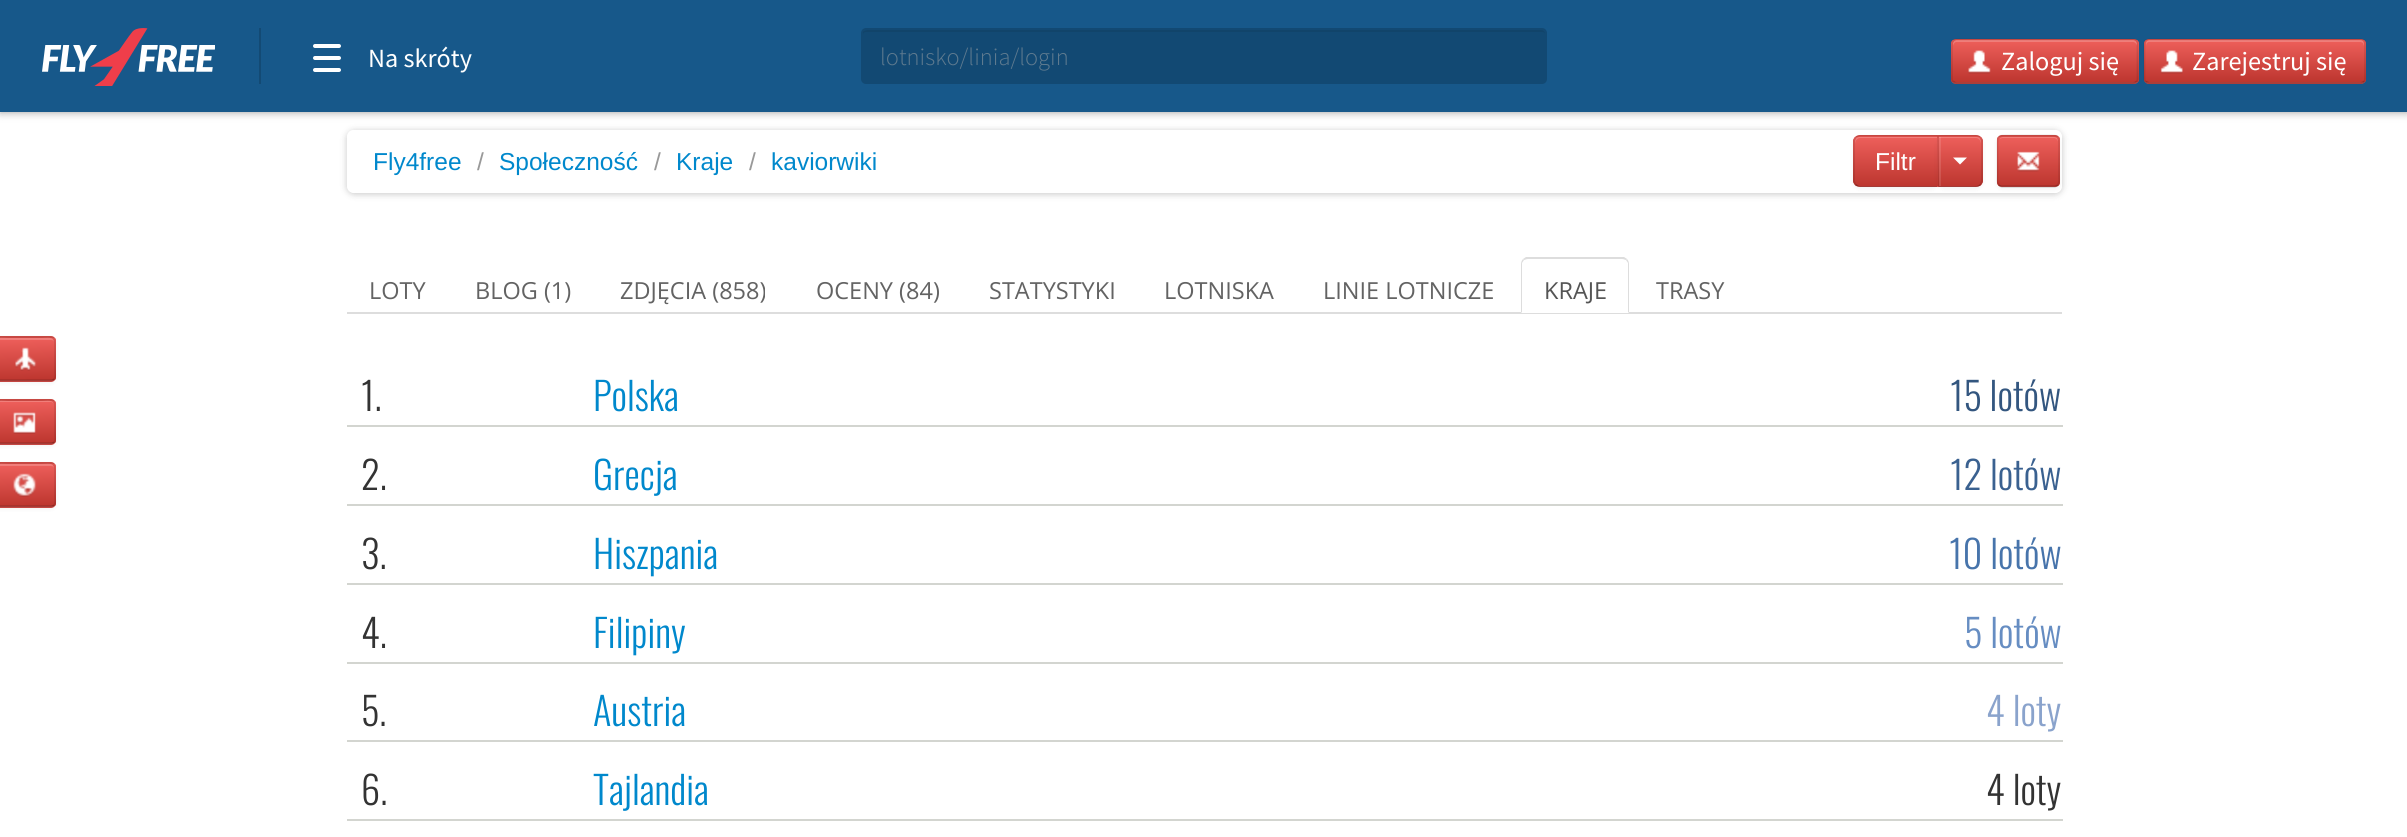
#include <cairo/cairo.h>
#include <math.h>
#include <stddef.h>

typedef struct { double x, y; const char *s; } line_t;
typedef struct { double x, y, w, h; unsigned color; } box_t;
static cairo_t *cr;

static void rgb(unsigned color)
{
	cairo_set_source_rgb(cr, (color >> 16) / 255.0, (color >> 8 & 255) / 255.0, (color & 255) / 255.0);
}

static void rrect(double x, double y, double w, double h, double r)
{
	cairo_new_sub_path(cr);
	cairo_arc(cr, x + w - r, y + h - r, r, 0, M_PI / 2);
	cairo_arc(cr, x + r, y + h - r, r, M_PI / 2, M_PI);
	cairo_arc(cr, x + r, y + r, r, M_PI, 1.5 * M_PI);
	cairo_arc(cr, x + w - r, y + r, r, 1.5 * M_PI, 2 * M_PI);
	cairo_close_path(cr);
}

static void soft_shadow(double x, double y, double w, double h, double r, double blur, double alpha)
{
	cairo_push_group_with_content(cr, CAIRO_CONTENT_ALPHA);
	cairo_set_operator(cr, CAIRO_OPERATOR_SOURCE);
	for (int i = 15; i >= -15 && fmin(w, h) + blur * i / 3 > 0; i -= 2) {
		double e = blur * i / 6;
		cairo_set_source_rgba(cr, 0, 0, 0, alpha * erfc((i - 1) / 8.5) / 2);
		rrect(x - e, y - e, w + 2 * e, h + 2 * e, fmax(0, fmin(r + e + blur * .6, fmin(w, h) / 2 + e)));
		cairo_fill(cr);
	}
	cairo_pattern_t *soft = cairo_pop_group(cr);
	cairo_mask(cr, soft);
	cairo_pattern_destroy(soft);
}

static void image(const char *path, double x, double y, double w, double h)
{
	cairo_surface_t *image = cairo_image_surface_create_from_png(path);
	cairo_save(cr);
	cairo_set_source_surface(cr, image, x, y);
	cairo_rectangle(cr, x, y, w, h);
	cairo_fill(cr);
	cairo_restore(cr);
	cairo_surface_destroy(image);
}

int main(void) {
	cairo_surface_t *surface = cairo_image_surface_create(CAIRO_FORMAT_RGB24, 2407, 837);
	cr = cairo_create(surface);
	cairo_font_options_t *options = cairo_font_options_create();
	cairo_font_options_set_hint_metrics(options, CAIRO_HINT_METRICS_OFF);
	cairo_font_options_set_hint_style(options, CAIRO_HINT_STYLE_NONE);
	cairo_set_font_options(cr, options);
	cairo_set_miter_limit(cr, 4);
	cairo_pattern_t *gradient;
	rgb(0xffffff);
	cairo_paint(cr);
	rgb(0x000000);
	soft_shadow(0, 0, 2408, 112, 0, 4.5, 0.4);
	rgb(0x17588a);
	cairo_rectangle(cr, 0, 0, 2407, 112);
	cairo_fill(cr);
	image("img/1.png", 42, 28, 173, 58);
	rgb(0x134a74);
	cairo_rectangle(cr, 259, 28, 2, 56);
	cairo_fill(cr);
	rgb(0xffffff);
	rrect(313, 68, 28, 4, 2);
	cairo_fill(cr);
	rrect(313, 44, 28, 4, 2);
	cairo_fill(cr);
	rrect(313, 56, 28, 4, 2);
	cairo_fill(cr);
	rgb(0x124973);
	rrect(861, 28, 686, 56, 5);
	cairo_fill(cr);
	rgb(0x11446a);
	cairo_new_path(cr);
	cairo_move_to(cr, 866, 32);
	cairo_line_to(cr, 1542, 32);
	cairo_curve_to(cr, 1544, 32, 1545, 33, 1545, 35);
	cairo_curve_to(cr, 1545, 32, 1544, 30, 1541, 30);
	cairo_line_to(cr, 867, 30);
	cairo_line_to(cr, 864, 31);
	cairo_line_to(cr, 863, 32);
	cairo_line_to(cr, 863, 35);
	cairo_curve_to(cr, 863, 33, 864, 32, 866, 32);
	cairo_close_path(cr);
	cairo_fill(cr);
	rgb(0xda4f49);
	rrect(1951, 39, 188, 45, 5);
	cairo_fill(cr);
	cairo_save(cr);
	rrect(1951, 39, 188, 45, 5);
	cairo_clip(cr);
	gradient = cairo_pattern_create_linear(2045, 40, 2045, 82);
	cairo_pattern_add_color_stop_rgba(gradient, 0, 0.933, 0.373, 0.357, 1);
	cairo_pattern_add_color_stop_rgba(gradient, 1, 0.741, 0.212, 0.184, 1);
	cairo_set_source(cr, gradient);
	cairo_pattern_destroy(gradient);
	cairo_rectangle(cr, 1951, 40, 188, 42);
	cairo_fill(cr);
	cairo_restore(cr);
	cairo_set_source_rgba(cr, 1, 1, 1, 0.2);
	cairo_new_path(cr);
	cairo_move_to(cr, 1956, 42);
	cairo_line_to(cr, 2133, 42);
	cairo_curve_to(cr, 2135, 42, 2137, 44, 2137, 46);
	cairo_line_to(cr, 2137, 44);
	cairo_curve_to(cr, 2137, 42, 2135, 40, 2133, 40);
	cairo_line_to(cr, 1957, 40);
	cairo_curve_to(cr, 1955, 40, 1953, 42, 1953, 44);
	cairo_line_to(cr, 1953, 46);
	cairo_curve_to(cr, 1953, 44, 1955, 42, 1956, 42);
	cairo_close_path(cr);
	cairo_fill(cr);
	cairo_new_path(cr);
	cairo_move_to(cr, 2136.5, 82);
	cairo_curve_to(cr, 2135.5, 82.5, 2134.5, 83, 2133, 83);
	cairo_line_to(cr, 1956.5, 83);
	cairo_curve_to(cr, 1955.5, 83, 1954, 82.5, 1953.5, 82);
	cairo_set_source_rgba(cr, 0, 0, 0, 0.25);
	cairo_set_line_width(cr, 1.8);
	cairo_stroke(cr);
	cairo_new_path(cr);
	cairo_move_to(cr, 1953.5, 82);
	cairo_curve_to(cr, 1952.5, 81, 1952, 80, 1952, 79);
	cairo_line_to(cr, 1952, 44);
	cairo_curve_to(cr, 1952, 42.5, 1952.5, 41.5, 1953.5, 40.5);
	cairo_curve_to(cr, 1954, 40, 1955.5, 39.5, 1956.5, 39.5);
	cairo_line_to(cr, 2133, 39.5);
	cairo_curve_to(cr, 2134.5, 39.5, 2135.5, 40, 2136.5, 40.5);
	cairo_curve_to(cr, 2137, 41.5, 2137.5, 42.5, 2137.5, 44);
	cairo_line_to(cr, 2137.5, 79);
	cairo_curve_to(cr, 2137.5, 80, 2137, 81, 2136.5, 82);
	cairo_set_source_rgba(cr, 0, 0, 0, 0.1);
	cairo_stroke(cr);
	image("img/2.png", 1968, 50, 23, 24);
	rgb(0xda4f49);
	rrect(2144, 39, 222, 45, 5);
	cairo_fill(cr);
	cairo_save(cr);
	rrect(2144, 39, 222, 45, 5);
	cairo_clip(cr);
	gradient = cairo_pattern_create_linear(2255, 40, 2255, 82);
	cairo_pattern_add_color_stop_rgba(gradient, 0, 0.933, 0.373, 0.357, 1);
	cairo_pattern_add_color_stop_rgba(gradient, 1, 0.741, 0.212, 0.184, 1);
	cairo_set_source(cr, gradient);
	cairo_pattern_destroy(gradient);
	cairo_rectangle(cr, 2144, 40, 222, 42);
	cairo_fill(cr);
	cairo_restore(cr);
	cairo_set_source_rgba(cr, 1, 1, 1, 0.2);
	cairo_new_path(cr);
	cairo_move_to(cr, 2149, 42);
	cairo_line_to(cr, 2361, 42);
	cairo_line_to(cr, 2363, 43);
	cairo_line_to(cr, 2364, 46);
	cairo_curve_to(cr, 2364, 43, 2364, 41, 2361, 40);
	cairo_line_to(cr, 2149, 40);
	cairo_curve_to(cr, 2146, 41, 2146, 43, 2146, 46);
	cairo_curve_to(cr, 2146, 44, 2147, 42, 2149, 42);
	cairo_close_path(cr);
	cairo_fill(cr);
	cairo_new_path(cr);
	cairo_move_to(cr, 2364, 82);
	cairo_line_to(cr, 2361, 83);
	cairo_line_to(cr, 2184.5, 83);
	cairo_line_to(cr, 2149, 83);
	cairo_line_to(cr, 2146, 82);
	cairo_set_source_rgba(cr, 0, 0, 0, 0.25);
	cairo_stroke(cr);
	cairo_new_path(cr);
	cairo_move_to(cr, 2146, 82);
	cairo_curve_to(cr, 2145, 81, 2144.5, 80, 2144.5, 79);
	cairo_line_to(cr, 2144.5, 44);
	cairo_curve_to(cr, 2144.5, 42.5, 2145, 41.5, 2146, 40.5);
	cairo_curve_to(cr, 2146.5, 40, 2148, 39.5, 2149, 39.5);
	cairo_line_to(cr, 2361, 39.5);
	cairo_curve_to(cr, 2362, 39.5, 2363, 40, 2364, 40.5);
	cairo_curve_to(cr, 2364.5, 41.5, 2365, 42.5, 2365, 44);
	cairo_line_to(cr, 2365, 79);
	cairo_curve_to(cr, 2365, 80, 2364.5, 81, 2364, 82);
	cairo_set_source_rgba(cr, 0, 0, 0, 0.1);
	cairo_stroke(cr);
	image("img/3.png", 2160, 50, 23, 24);
	rgb(0x000000);
	soft_shadow(-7, 338, 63, 45, 5, 2, 0.05);
	rgb(0xda4f49);
	rrect(-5, 336, 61, 46, 5);
	cairo_fill(cr);
	cairo_save(cr);
	rrect(-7, 336, 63, 46, 5);
	cairo_clip(cr);
	gradient = cairo_pattern_create_linear(24, 338, 25, 380);
	cairo_pattern_add_color_stop_rgba(gradient, 0, 0.933, 0.373, 0.357, 1);
	cairo_pattern_add_color_stop_rgba(gradient, 1, 0.741, 0.212, 0.184, 1);
	cairo_set_source(cr, gradient);
	cairo_pattern_destroy(gradient);
	cairo_rectangle(cr, 0, 338, 56, 42);
	cairo_fill(cr);
	cairo_restore(cr);
	cairo_set_source_rgba(cr, 1, 1, 1, 0.2);
	cairo_new_path(cr);
	cairo_move_to(cr, -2, 340);
	cairo_line_to(cr, 51, 340);
	cairo_curve_to(cr, 53, 340, 54, 341, 54, 343);
	cairo_curve_to(cr, 54, 336, 47, 338, 42, 338);
	cairo_line_to(cr, 8, 338);
	cairo_curve_to(cr, 2, 338, -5, 336, -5, 343);
	cairo_curve_to(cr, -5, 341, -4, 340, -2, 340);
	cairo_close_path(cr);
	cairo_fill(cr);
	cairo_new_path(cr);
	cairo_move_to(cr, 54, 379.5);
	cairo_curve_to(cr, 53, 380, 52, 380.5, 51, 380.5);
	cairo_line_to(cr, -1.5, 380.5);
	cairo_curve_to(cr, -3, 380.5, -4, 380, -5, 379.5);
	cairo_set_source_rgba(cr, 0, 0, 0, 0.25);
	cairo_stroke(cr);
	cairo_new_path(cr);
	cairo_move_to(cr, -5, 379.5);
	cairo_curve_to(cr, -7, 377, -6, 373, -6, 370.5);
	cairo_line_to(cr, -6, 347);
	cairo_curve_to(cr, -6, 335.5, -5, 337, 7, 337);
	cairo_line_to(cr, 42, 337);
	cairo_curve_to(cr, 54, 337, 55, 335.5, 55, 347);
	cairo_line_to(cr, 55, 370.5);
	cairo_curve_to(cr, 55, 373, 56, 377, 54, 379.5);
	cairo_set_source_rgba(cr, 0, 0, 0, 0.1);
	cairo_stroke(cr);
	image("img/4.png", 15, 347, 22, 24);
	rgb(0x000000);
	soft_shadow(-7, 401, 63, 45, 5, 2, 0.05);
	rgb(0xda4f49);
	rrect(-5, 399, 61, 46, 5);
	cairo_fill(cr);
	cairo_save(cr);
	rrect(-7, 399, 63, 46, 5);
	cairo_clip(cr);
	gradient = cairo_pattern_create_linear(24, 401, 25, 443);
	cairo_pattern_add_color_stop_rgba(gradient, 0, 0.933, 0.373, 0.357, 1);
	cairo_pattern_add_color_stop_rgba(gradient, 1, 0.741, 0.212, 0.184, 1);
	cairo_set_source(cr, gradient);
	cairo_pattern_destroy(gradient);
	cairo_rectangle(cr, 0, 401, 56, 42);
	cairo_fill(cr);
	cairo_restore(cr);
	rgb(0xf17f7b);
	cairo_new_path(cr);
	cairo_move_to(cr, -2, 402);
	cairo_line_to(cr, 51, 402);
	cairo_curve_to(cr, 53, 402, 54, 404, 54, 406);
	cairo_curve_to(cr, 54, 399, 47, 401, 42, 401);
	cairo_line_to(cr, 8, 401);
	cairo_curve_to(cr, 2, 401, -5, 399, -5, 406);
	cairo_curve_to(cr, -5, 404, -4, 402, -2, 402);
	cairo_close_path(cr);
	cairo_fill(cr);
	cairo_new_path(cr);
	cairo_move_to(cr, 54, 442.5);
	cairo_curve_to(cr, 53, 443, 52, 443.5, 51, 443.5);
	cairo_line_to(cr, -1.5, 443.5);
	cairo_curve_to(cr, -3, 443.5, -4, 443, -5, 442.5);
	cairo_set_source_rgba(cr, 0, 0, 0, 0.25);
	cairo_stroke(cr);
	cairo_new_path(cr);
	cairo_move_to(cr, -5, 442.5);
	cairo_curve_to(cr, -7, 440, -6, 436, -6, 433.5);
	cairo_line_to(cr, -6, 410);
	cairo_curve_to(cr, -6, 398.5, -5, 400, 7, 400);
	cairo_line_to(cr, 42, 400);
	cairo_curve_to(cr, 54, 400, 55, 398.5, 55, 410);
	cairo_line_to(cr, 55, 433.5);
	cairo_curve_to(cr, 55, 436, 56, 440, 54, 442.5);
	cairo_set_source_rgba(cr, 0, 0, 0, 0.1);
	cairo_stroke(cr);
	image("img/5.png", 13, 412, 23, 22);
	rgb(0x000000);
	soft_shadow(-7, 464, 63, 45, 5, 2, 0.05);
	rgb(0xda4f49);
	rrect(-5, 462, 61, 46, 5);
	cairo_fill(cr);
	cairo_save(cr);
	rrect(-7, 462, 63, 46, 5);
	cairo_clip(cr);
	gradient = cairo_pattern_create_linear(24, 464, 25, 506);
	cairo_pattern_add_color_stop_rgba(gradient, 0, 0.933, 0.373, 0.357, 1);
	cairo_pattern_add_color_stop_rgba(gradient, 1, 0.741, 0.212, 0.184, 1);
	cairo_set_source(cr, gradient);
	cairo_pattern_destroy(gradient);
	cairo_rectangle(cr, 0, 464, 56, 42);
	cairo_fill(cr);
	cairo_restore(cr);
	cairo_set_source_rgba(cr, 1, 1, 1, 0.2);
	cairo_new_path(cr);
	cairo_move_to(cr, -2, 466);
	cairo_line_to(cr, 51, 466);
	cairo_curve_to(cr, 53, 466, 54, 467, 54, 469);
	cairo_curve_to(cr, 54, 462, 47, 464, 42, 464);
	cairo_line_to(cr, 8, 464);
	cairo_curve_to(cr, 2, 464, -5, 462, -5, 469);
	cairo_curve_to(cr, -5, 467, -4, 466, -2, 466);
	cairo_close_path(cr);
	cairo_fill(cr);
	cairo_new_path(cr);
	cairo_move_to(cr, 54, 505.5);
	cairo_curve_to(cr, 53, 506, 52, 506.5, 51, 506.5);
	cairo_line_to(cr, -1.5, 506.5);
	cairo_curve_to(cr, -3, 506.5, -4, 506, -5, 505.5);
	cairo_set_source_rgba(cr, 0, 0, 0, 0.25);
	cairo_stroke(cr);
	cairo_new_path(cr);
	cairo_move_to(cr, -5, 505.5);
	cairo_curve_to(cr, -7, 503, -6, 499, -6, 496.5);
	cairo_line_to(cr, -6, 473);
	cairo_curve_to(cr, -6, 461.5, -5, 463, 7, 463);
	cairo_line_to(cr, 42, 463);
	cairo_curve_to(cr, 54, 463, 55, 461.5, 55, 473);
	cairo_line_to(cr, 55, 496.5);
	cairo_curve_to(cr, 55, 499, 56, 503, 54, 505.5);
	cairo_set_source_rgba(cr, 0, 0, 0, 0.1);
	cairo_stroke(cr);
	image("img/6.png", 13, 473, 24, 24);
	cairo_save(cr);
	cairo_set_fill_rule(cr, CAIRO_FILL_RULE_EVEN_ODD);
	cairo_new_path(cr);
	cairo_move_to(cr, 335, 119);
	cairo_line_to(cr, 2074, 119);
	cairo_line_to(cr, 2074, 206);
	cairo_line_to(cr, 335, 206);
	cairo_close_path(cr);
	cairo_move_to(cr, 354, 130);
	cairo_line_to(cr, 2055, 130);
	cairo_curve_to(cr, 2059, 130, 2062, 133, 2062, 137);
	cairo_line_to(cr, 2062, 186);
	cairo_curve_to(cr, 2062, 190, 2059, 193, 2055, 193);
	cairo_line_to(cr, 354, 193);
	cairo_curve_to(cr, 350, 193, 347, 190, 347, 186);
	cairo_line_to(cr, 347, 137);
	cairo_curve_to(cr, 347, 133, 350, 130, 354, 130);
	cairo_close_path(cr);
	cairo_clip(cr);
	rgb(0x000000);
	soft_shadow(347, 131, 1715, 63, 7, 3.5, 0.22);
	cairo_restore(cr);
	rgb(0x000000);
	soft_shadow(1853, 137, 86, 52, 7, 2, 0.05);
	rgb(0xda4f49);
	cairo_new_path(cr);
	cairo_move_to(cr, 1860, 135);
	cairo_line_to(cr, 1939, 135);
	cairo_line_to(cr, 1939, 187);
	cairo_line_to(cr, 1860, 187);
	cairo_curve_to(cr, 1856, 187, 1853, 184, 1853, 180);
	cairo_line_to(cr, 1853, 142);
	cairo_curve_to(cr, 1853, 138, 1856, 135, 1860, 135);
	cairo_close_path(cr);
	cairo_fill(cr);
	cairo_save(cr);
	cairo_new_path(cr);
	cairo_move_to(cr, 1860, 135);
	cairo_line_to(cr, 1939, 135);
	cairo_line_to(cr, 1939, 187);
	cairo_line_to(cr, 1860, 187);
	cairo_curve_to(cr, 1856, 187, 1853, 184, 1853, 180);
	cairo_line_to(cr, 1853, 142);
	cairo_curve_to(cr, 1853, 138, 1856, 135, 1860, 135);
	cairo_close_path(cr);
	cairo_clip(cr);
	gradient = cairo_pattern_create_linear(1896, 137, 1896, 186);
	cairo_pattern_add_color_stop_rgba(gradient, 0, 0.933, 0.373, 0.357, 1);
	cairo_pattern_add_color_stop_rgba(gradient, 1, 0.741, 0.212, 0.184, 1);
	cairo_set_source(cr, gradient);
	cairo_pattern_destroy(gradient);
	cairo_rectangle(cr, 1853, 137, 84, 49);
	cairo_fill(cr);
	cairo_restore(cr);
	cairo_set_source_rgba(cr, 1, 1, 1, 0.2);
	cairo_new_path(cr);
	cairo_move_to(cr, 1860, 138);
	cairo_line_to(cr, 1937, 138);
	cairo_line_to(cr, 1937, 137);
	cairo_line_to(cr, 1860, 137);
	cairo_curve_to(cr, 1857, 137, 1855, 139, 1855, 142);
	cairo_line_to(cr, 1855, 144);
	cairo_curve_to(cr, 1855, 141, 1857, 138, 1860, 138);
	cairo_close_path(cr);
	cairo_fill(cr);
	cairo_set_source_rgba(cr, 0, 0, 0, 0.1);
	cairo_new_path(cr);
	cairo_move_to(cr, 1860, 135);
	cairo_curve_to(cr, 1858, 135, 1856, 136, 1855, 137);
	cairo_line_to(cr, 1856, 138);
	cairo_line_to(cr, 1859, 136);
	cairo_line_to(cr, 1937, 136);
	cairo_line_to(cr, 1937, 137);
	cairo_line_to(cr, 1939, 135);
	cairo_close_path(cr);
	cairo_fill(cr);
	cairo_set_source_rgba(cr, 0, 0, 0, 0.25);
	cairo_new_path(cr);
	cairo_move_to(cr, 1939, 187);
	cairo_line_to(cr, 1860, 187);
	cairo_curve_to(cr, 1858, 187, 1856, 186, 1855, 185);
	cairo_line_to(cr, 1856, 184);
	cairo_line_to(cr, 1859, 186);
	cairo_line_to(cr, 1937, 186);
	cairo_line_to(cr, 1937, 185);
	cairo_close_path(cr);
	cairo_fill(cr);
	cairo_set_source_rgba(cr, 0, 0, 0, 0.1);
	cairo_new_path(cr);
	cairo_move_to(cr, 1853, 140);
	cairo_line_to(cr, 1855, 137);
	cairo_line_to(cr, 1856, 138);
	cairo_curve_to(cr, 1856, 139, 1855, 140, 1855, 142);
	cairo_line_to(cr, 1855, 180);
	cairo_curve_to(cr, 1855, 182, 1856, 183, 1856, 184);
	cairo_line_to(cr, 1855, 185);
	cairo_line_to(cr, 1853, 182);
	cairo_close_path(cr);
	cairo_fill(cr);
	rgb(0x000000);
	soft_shadow(1937, 137, 46, 52, 7, 2, 0.05);
	rgb(0xda4f49);
	cairo_new_path(cr);
	cairo_move_to(cr, 1937, 135);
	cairo_line_to(cr, 1976, 135);
	cairo_curve_to(cr, 1980, 135, 1983, 138, 1983, 142);
	cairo_line_to(cr, 1983, 180);
	cairo_curve_to(cr, 1983, 184, 1980, 187, 1976, 187);
	cairo_line_to(cr, 1937, 187);
	cairo_close_path(cr);
	cairo_fill(cr);
	cairo_save(cr);
	cairo_new_path(cr);
	cairo_move_to(cr, 1937, 135);
	cairo_line_to(cr, 1976, 135);
	cairo_curve_to(cr, 1980, 135, 1983, 138, 1983, 142);
	cairo_line_to(cr, 1983, 180);
	cairo_curve_to(cr, 1983, 184, 1980, 187, 1976, 187);
	cairo_line_to(cr, 1937, 187);
	cairo_close_path(cr);
	cairo_clip(cr);
	gradient = cairo_pattern_create_linear(1960, 137, 1960, 186);
	cairo_pattern_add_color_stop_rgba(gradient, 0, 0.933, 0.373, 0.357, 1);
	cairo_pattern_add_color_stop_rgba(gradient, 1, 0.741, 0.212, 0.184, 1);
	cairo_set_source(cr, gradient);
	cairo_pattern_destroy(gradient);
	cairo_rectangle(cr, 1937, 137, 46, 49);
	cairo_fill(cr);
	cairo_restore(cr);
	cairo_set_source_rgba(cr, 1, 1, 1, 0.2);
	cairo_new_path(cr);
	cairo_move_to(cr, 1939, 138);
	cairo_line_to(cr, 1976, 138);
	cairo_curve_to(cr, 1979, 138, 1981, 141, 1981, 144);
	cairo_line_to(cr, 1981, 142);
	cairo_curve_to(cr, 1981, 139, 1979, 137, 1976, 137);
	cairo_line_to(cr, 1939, 137);
	cairo_close_path(cr);
	cairo_fill(cr);
	cairo_set_source_rgba(cr, 1, 1, 1, 0.12);
	cairo_rectangle(cr, 1939, 137, 2, 49);
	cairo_fill(cr);
	cairo_set_source_rgba(cr, 0, 0, 0, 0.1);
	cairo_new_path(cr);
	cairo_move_to(cr, 1939, 136);
	cairo_line_to(cr, 1976, 136);
	cairo_curve_to(cr, 1978, 136, 1979, 137, 1980, 138);
	cairo_line_to(cr, 1981, 137);
	cairo_curve_to(cr, 1980, 136, 1978, 135, 1976, 135);
	cairo_line_to(cr, 1938, 135);
	cairo_close_path(cr);
	cairo_fill(cr);
	cairo_new_path(cr);
	cairo_move_to(cr, 1981, 137);
	cairo_line_to(cr, 1983, 140);
	cairo_line_to(cr, 1983, 182);
	cairo_line_to(cr, 1981, 185);
	cairo_line_to(cr, 1980, 184);
	cairo_curve_to(cr, 1980, 183, 1981, 182, 1981, 180);
	cairo_line_to(cr, 1981, 142);
	cairo_curve_to(cr, 1981, 140, 1980, 139, 1980, 138);
	cairo_close_path(cr);
	cairo_fill(cr);
	cairo_set_source_rgba(cr, 0, 0, 0, 0.25);
	cairo_new_path(cr);
	cairo_move_to(cr, 1981, 185);
	cairo_curve_to(cr, 1980, 186, 1978, 187, 1976, 187);
	cairo_line_to(cr, 1938, 187);
	cairo_line_to(cr, 1939, 186);
	cairo_line_to(cr, 1976, 186);
	cairo_curve_to(cr, 1978, 186, 1979, 185, 1980, 184);
	cairo_close_path(cr);
	cairo_fill(cr);
	cairo_set_source_rgba(cr, 0, 0, 0, 0.1);
	cairo_new_path(cr);
	cairo_move_to(cr, 1937, 135);
	cairo_line_to(cr, 1939, 136);
	cairo_line_to(cr, 1939, 186);
	cairo_line_to(cr, 1938, 187);
	cairo_close_path(cr);
	cairo_fill(cr);
	rgb(0xffffff);
	cairo_new_path(cr);
	cairo_move_to(cr, 1953, 157.5);
	cairo_line_to(cr, 1967, 157.5);
	cairo_line_to(cr, 1960, 164.5);
	cairo_close_path(cr);
	cairo_fill(cr);
	rgb(0x000000);
	soft_shadow(1997, 137, 63, 52, 5, 2, 0.05);
	rgb(0xda4f49);
	rrect(1997, 135, 63, 52, 5);
	cairo_fill(cr);
	cairo_save(cr);
	rrect(1997, 135, 63, 52, 5);
	cairo_clip(cr);
	gradient = cairo_pattern_create_linear(2028, 137, 2028, 186);
	cairo_pattern_add_color_stop_rgba(gradient, 0, 0.933, 0.373, 0.357, 1);
	cairo_pattern_add_color_stop_rgba(gradient, 1, 0.741, 0.212, 0.184, 1);
	cairo_set_source(cr, gradient);
	cairo_pattern_destroy(gradient);
	cairo_rectangle(cr, 1997, 137, 63, 49);
	cairo_fill(cr);
	cairo_restore(cr);
	rgb(0xf17f7c);
	cairo_new_path(cr);
	cairo_move_to(cr, 2002, 138);
	cairo_line_to(cr, 2054, 138);
	cairo_curve_to(cr, 2056, 138, 2058, 140, 2058, 142);
	cairo_line_to(cr, 2058, 141);
	cairo_curve_to(cr, 2058, 139, 2056, 137, 2054, 137);
	cairo_line_to(cr, 2003, 137);
	cairo_curve_to(cr, 2002, 137, 2000, 138, 2000, 139);
	cairo_close_path(cr);
	cairo_fill(cr);
	cairo_new_path(cr);
	cairo_move_to(cr, 2057.5, 185);
	cairo_curve_to(cr, 2057, 186, 2055.5, 186.5, 2054.5, 186.5);
	cairo_line_to(cr, 2002, 186.5);
	cairo_curve_to(cr, 2001, 186.5, 1999.5, 186, 1999, 185);
	cairo_set_source_rgba(cr, 0, 0, 0, 0.25);
	cairo_stroke(cr);
	cairo_new_path(cr);
	cairo_move_to(cr, 1999, 185);
	cairo_curve_to(cr, 1996.5, 182.5, 1997.5, 177.5, 1997.5, 175);
	cairo_line_to(cr, 1997.5, 147);
	cairo_curve_to(cr, 1997.5, 134.5, 1997.5, 135.5, 2011, 135.5);
	cairo_line_to(cr, 2046, 135.5);
	cairo_curve_to(cr, 2059, 135.5, 2059, 134.5, 2059, 147);
	cairo_line_to(cr, 2059, 175);
	cairo_curve_to(cr, 2059, 177.5, 2060, 182.5, 2057.5, 185);
	cairo_set_source_rgba(cr, 0, 0, 0, 0.1);
	cairo_stroke(cr);
	image("img/7.png", 2017, 151, 23, 21);
	rgb(0xdddddd);
	cairo_rectangle(cr, 347, 312, 1715, 2);
	cairo_fill(cr);
	rgb(0xffffff);
	cairo_new_path(cr);
	cairo_move_to(cr, 1528, 257);
	cairo_line_to(cr, 1622, 257);
	cairo_curve_to(cr, 1626, 257, 1629, 260, 1629, 264);
	cairo_line_to(cr, 1629, 313);
	cairo_line_to(cr, 1521, 313);
	cairo_line_to(cr, 1521, 264);
	cairo_curve_to(cr, 1521, 260, 1524, 257, 1528, 257);
	cairo_close_path(cr);
	cairo_fill(cr);
	rgb(0xdddddd);
	cairo_new_path(cr);
	cairo_move_to(cr, 1528, 259);
	cairo_curve_to(cr, 1526, 259, 1525, 260, 1524, 260);
	cairo_line_to(cr, 1523, 259);
	cairo_line_to(cr, 1526, 257);
	cairo_line_to(cr, 1624, 257);
	cairo_line_to(cr, 1627, 259);
	cairo_line_to(cr, 1626, 260);
	cairo_curve_to(cr, 1625, 260, 1624, 259, 1622, 259);
	cairo_close_path(cr);
	cairo_fill(cr);
	cairo_new_path(cr);
	cairo_move_to(cr, 1627, 259);
	cairo_curve_to(cr, 1628, 260, 1629, 262, 1629, 264);
	cairo_line_to(cr, 1629, 313);
	cairo_line_to(cr, 1628, 312);
	cairo_line_to(cr, 1628, 263);
	cairo_line_to(cr, 1626, 260);
	cairo_close_path(cr);
	cairo_fill(cr);
	cairo_new_path(cr);
	cairo_move_to(cr, 1521, 313);
	cairo_line_to(cr, 1522, 312);
	cairo_line_to(cr, 1522, 263);
	cairo_line_to(cr, 1524, 260);
	cairo_line_to(cr, 1523, 259);
	cairo_curve_to(cr, 1522, 260, 1521, 262, 1521, 264);
	cairo_close_path(cr);
	cairo_fill(cr);
	{
		static const box_t items[] = {
			{347, 425, 1716, 2, 0xd3d5d0},
			{347, 504, 1716, 2, 0xd3d5d0},
			{347, 583, 1716, 2, 0xd3d5d0},
			{347, 662, 1716, 2, 0xd3d5d0},
			{347, 740, 1716, 2, 0xd3d5d0},
			{347, 819, 1716, 2, 0xd3d5d0},
		};
		for (size_t i = 0; i < sizeof items / sizeof *items; i++) {
			rgb(items[i].color);
			cairo_rectangle(cr, items[i].x, items[i].y, items[i].w, items[i].h);
			cairo_fill(cr);
		}
	}
	cairo_select_font_face(cr, "Source Sans Pro", CAIRO_FONT_SLANT_NORMAL, CAIRO_FONT_WEIGHT_NORMAL);
	cairo_set_font_size(cr, 26.25);
	rgb(0xffffff);
	cairo_move_to(cr, 368, 67);
	cairo_show_text(cr, "Na skróty");
	cairo_select_font_face(cr, "Source Sans Pro Light", CAIRO_FONT_SLANT_NORMAL, CAIRO_FONT_WEIGHT_NORMAL);
	cairo_set_font_size(cr, 24.5);
	rgb(0x5e7a8f);
	cairo_move_to(cr, 880, 65);
	cairo_show_text(cr, "lotnisko/linia/login");
	cairo_select_font_face(cr, "Source Sans Pro", CAIRO_FONT_SLANT_NORMAL, CAIRO_FONT_WEIGHT_NORMAL);
	cairo_set_font_size(cr, 26.25);
	rgb(0xffffff);
	cairo_move_to(cr, 2001, 70);
	cairo_show_text(cr, "Zaloguj się");
	cairo_move_to(cr, 2192, 70);
	cairo_show_text(cr, "Zarejestruj się");
	cairo_select_font_face(cr, "Liberation Sans", CAIRO_FONT_SLANT_NORMAL, CAIRO_FONT_WEIGHT_NORMAL);
	cairo_set_font_size(cr, 24.5);
	rgb(0x0088cc);
	cairo_move_to(cr, 373, 170);
	cairo_show_text(cr, "Fly4free");
	rgb(0x999999);
	cairo_move_to(cr, 477, 170);
	cairo_show_text(cr, "/");
	rgb(0x0088cc);
	cairo_move_to(cr, 499, 170);
	cairo_show_text(cr, "Społeczność");
	rgb(0x999999);
	cairo_move_to(cr, 654, 170);
	cairo_show_text(cr, "/");
	rgb(0x0088cc);
	cairo_move_to(cr, 676, 170);
	cairo_show_text(cr, "Kraje");
	rgb(0x999999);
	cairo_move_to(cr, 749, 170);
	cairo_show_text(cr, "/");
	rgb(0x0088cc);
	cairo_move_to(cr, 771, 170);
	cairo_show_text(cr, "kaviorwiki");
	rgb(0xffffff);
	cairo_move_to(cr, 1875, 170);
	cairo_show_text(cr, "Filtr");
	cairo_select_font_face(cr, "Open Sans", CAIRO_FONT_SLANT_NORMAL, CAIRO_FONT_WEIGHT_NORMAL);
	cairo_set_font_size(cr, 23.5);
	rgb(0x636363);
	{
		static const line_t items[] = {
			{369, 299, "LOTY"},
			{475, 299, "BLOG (1)"},
			{620, 299, "ZDJĘCIA (858)"},
			{816, 299, "OCENY (84)"},
			{989, 299, "STATYSTYKI"},
			{1164, 299, "LOTNISKA"},
			{1323, 299, "LINIE LOTNICZE"},
		};
		for (size_t i = 0; i < sizeof items / sizeof *items; i++) {
			cairo_move_to(cr, items[i].x, items[i].y);
			cairo_show_text(cr, items[i].s);
		}
	}
	rgb(0x555555);
	cairo_move_to(cr, 1544, 299);
	cairo_show_text(cr, "KRAJE");
	rgb(0x636363);
	cairo_move_to(cr, 1656, 299);
	cairo_show_text(cr, "TRASY");
	cairo_select_font_face(cr, "Oswald Light", CAIRO_FONT_SLANT_NORMAL, CAIRO_FONT_WEIGHT_NORMAL);
	cairo_set_font_size(cr, 38.5);
	rgb(0x333333);
	cairo_move_to(cr, 361, 411);
	cairo_show_text(cr, "1.");
	rgb(0x0088cc);
	cairo_move_to(cr, 593, 411);
	cairo_show_text(cr, "Polska");
	rgb(0x33567f);
	cairo_move_to(cr, 1950, 411);
	cairo_show_text(cr, "15 lotów");
	rgb(0x333333);
	cairo_move_to(cr, 361, 490);
	cairo_show_text(cr, "2.");
	rgb(0x0088cc);
	cairo_move_to(cr, 593, 490);
	cairo_show_text(cr, "Grecja");
	rgb(0x3a6190);
	cairo_move_to(cr, 1950, 490);
	cairo_show_text(cr, "12 lotów");
	rgb(0x333333);
	cairo_move_to(cr, 361, 569);
	cairo_show_text(cr, "3.");
	rgb(0x0088cc);
	cairo_move_to(cr, 593, 569);
	cairo_show_text(cr, "Hiszpania");
	rgb(0x4774ab);
	cairo_move_to(cr, 1949, 569);
	cairo_show_text(cr, "10 lotów");
	rgb(0x333333);
	cairo_move_to(cr, 361, 648);
	cairo_show_text(cr, "4.");
	rgb(0x0088cc);
	cairo_move_to(cr, 593, 648);
	cairo_show_text(cr, "Filipiny");
	rgb(0x668dc2);
	cairo_move_to(cr, 1964, 648);
	cairo_show_text(cr, "5 lotów");
	rgb(0x333333);
	cairo_move_to(cr, 361, 726);
	cairo_show_text(cr, "5.");
	rgb(0x0088cc);
	cairo_move_to(cr, 593, 726);
	cairo_show_text(cr, "Austria");
	rgb(0x8aa3cc);
	cairo_move_to(cr, 1986, 726);
	cairo_show_text(cr, "4 loty");
	rgb(0x333333);
	cairo_move_to(cr, 361, 805);
	cairo_show_text(cr, "6.");
	rgb(0x0088cc);
	cairo_move_to(cr, 593, 805);
	cairo_show_text(cr, "Tajlandia");
	rgb(0x333333);
	cairo_move_to(cr, 1986, 805);
	cairo_show_text(cr, "4 loty");
	cairo_surface_write_to_png(surface, "page.png");
	cairo_font_options_destroy(options);
	cairo_destroy(cr);
	cairo_surface_destroy(surface);
	return 0;
}
